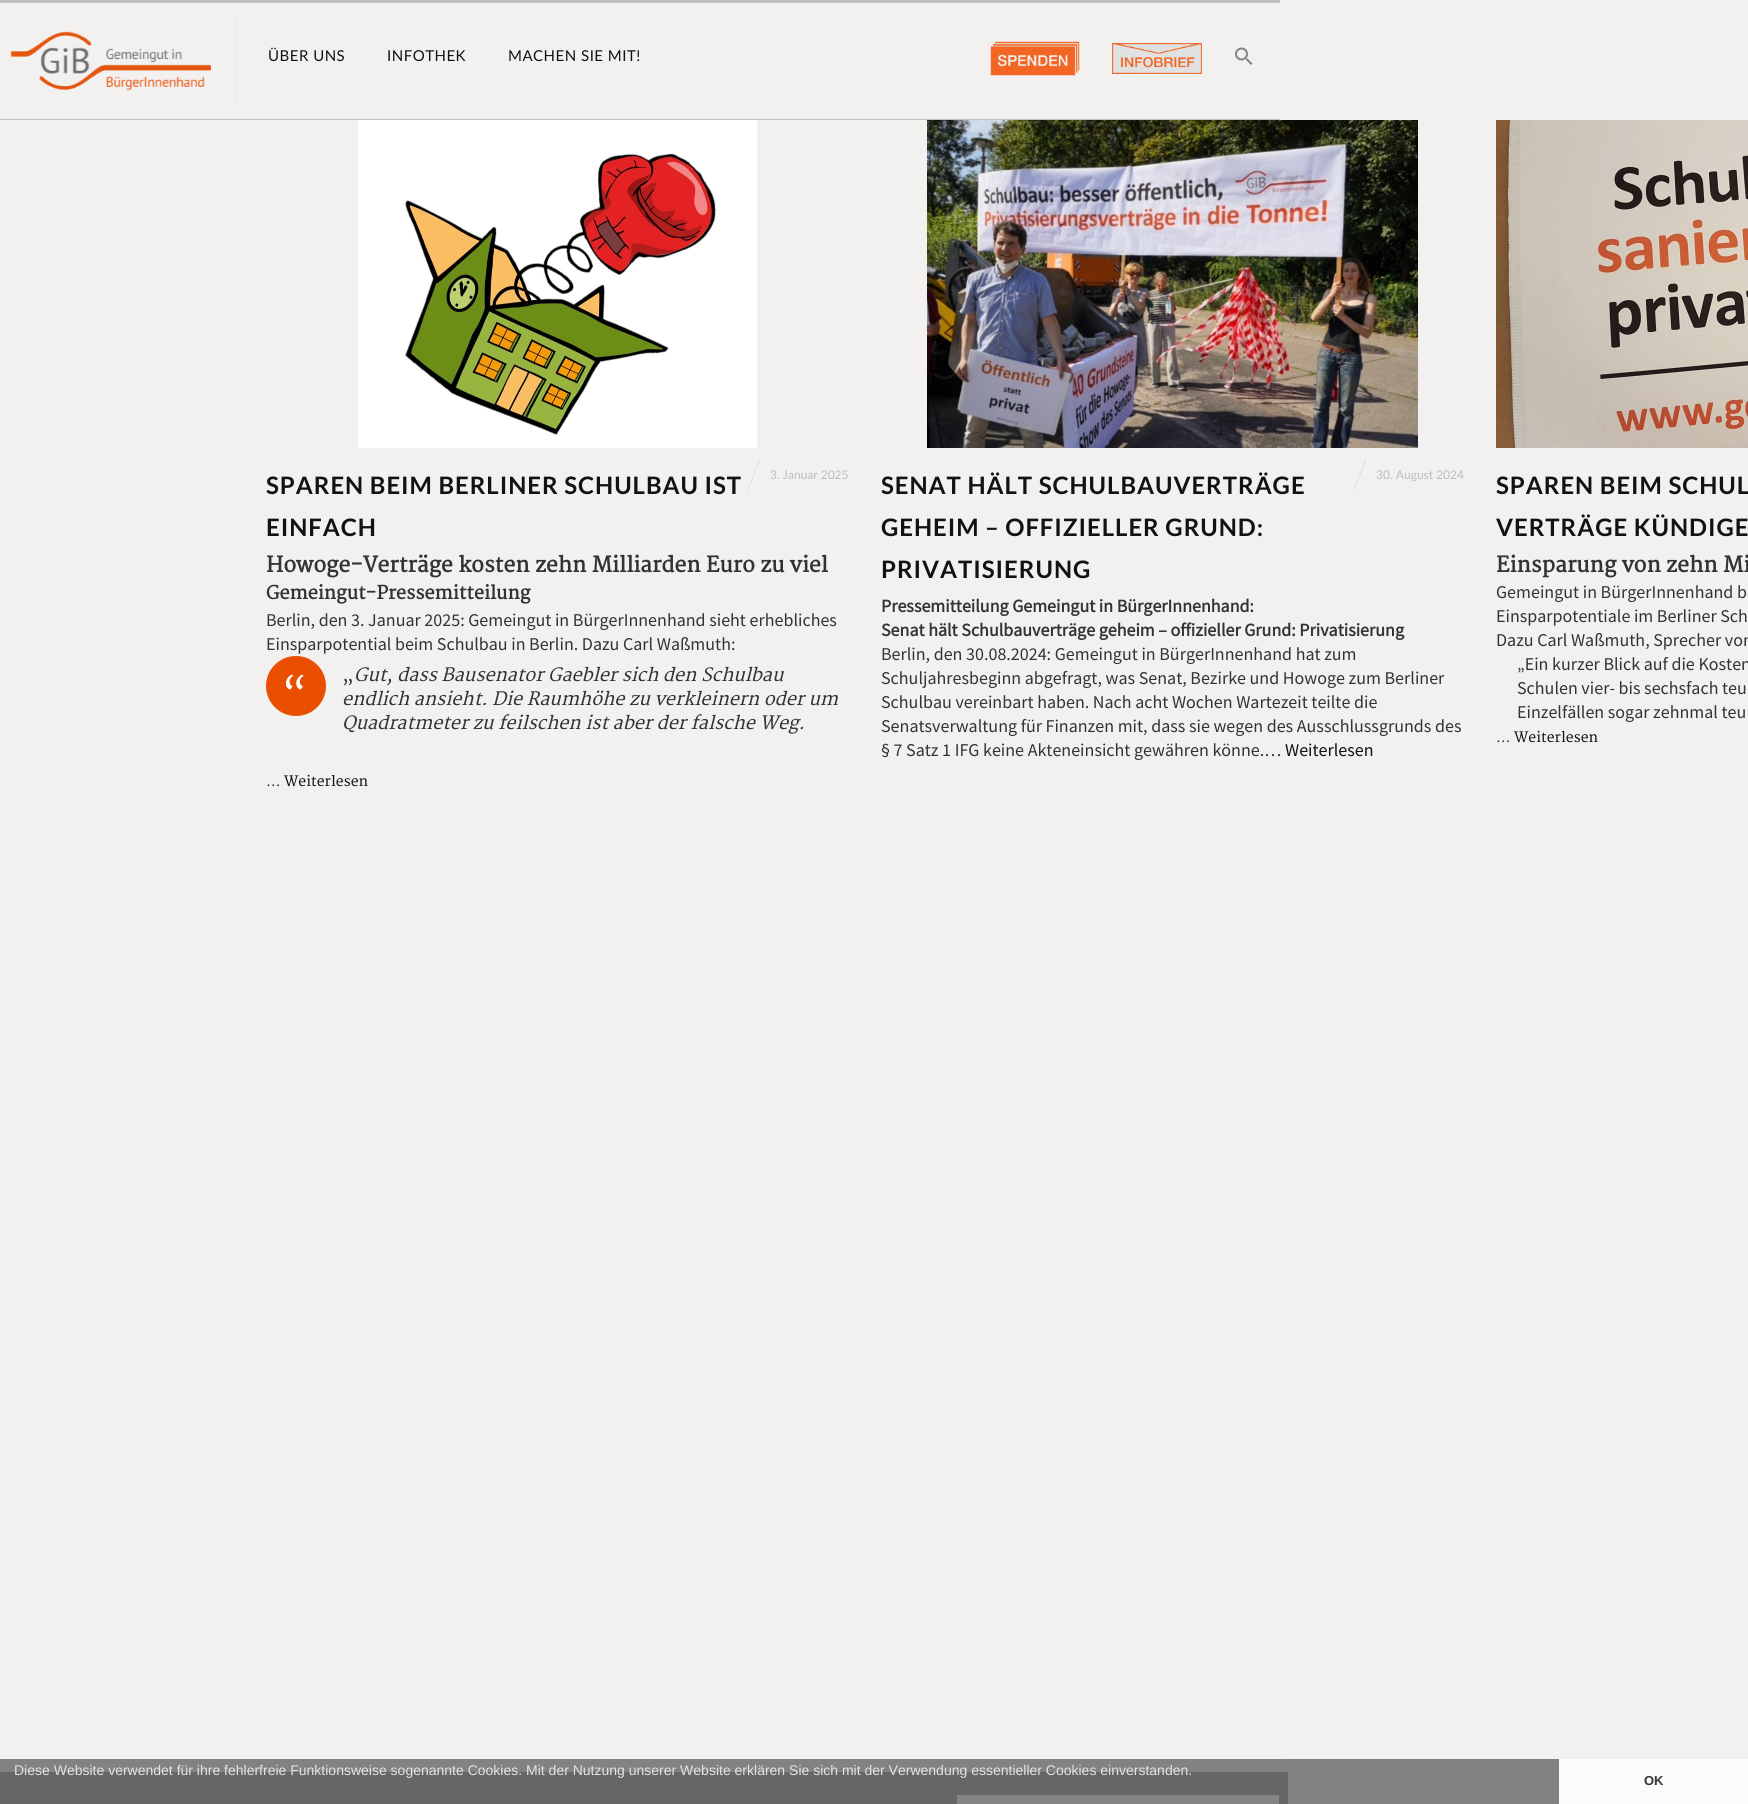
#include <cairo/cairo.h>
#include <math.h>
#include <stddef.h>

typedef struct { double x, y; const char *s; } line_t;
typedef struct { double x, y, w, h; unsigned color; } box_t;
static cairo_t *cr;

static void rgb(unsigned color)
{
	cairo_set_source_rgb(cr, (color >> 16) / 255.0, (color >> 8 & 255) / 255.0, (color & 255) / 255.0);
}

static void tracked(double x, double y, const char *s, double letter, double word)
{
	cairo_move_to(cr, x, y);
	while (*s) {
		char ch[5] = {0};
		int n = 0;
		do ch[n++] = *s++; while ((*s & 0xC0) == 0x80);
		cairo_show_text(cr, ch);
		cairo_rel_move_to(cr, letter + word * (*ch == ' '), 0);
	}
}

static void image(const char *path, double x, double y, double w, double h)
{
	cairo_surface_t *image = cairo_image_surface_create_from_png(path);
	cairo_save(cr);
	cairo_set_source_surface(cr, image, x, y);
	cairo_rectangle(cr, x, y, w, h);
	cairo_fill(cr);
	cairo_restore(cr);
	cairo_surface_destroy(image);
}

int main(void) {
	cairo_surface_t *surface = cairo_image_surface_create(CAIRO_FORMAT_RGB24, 1748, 1804);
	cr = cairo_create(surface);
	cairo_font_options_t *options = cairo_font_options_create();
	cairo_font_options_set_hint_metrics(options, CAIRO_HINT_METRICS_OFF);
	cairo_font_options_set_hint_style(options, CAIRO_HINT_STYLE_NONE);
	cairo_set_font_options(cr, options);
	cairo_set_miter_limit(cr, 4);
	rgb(0xf2f1ef);
	cairo_paint(cr);
	{
		static const box_t items[] = {
			{0, 1759, 1559, 45, 0x828281},
			{0, 0, 1280, 3, 0xc0c0c0},
			{0, 119, 1280, 1, 0xc0c0c0},
			{235, 15, 1, 92, 0xebebeb},
		};
		for (size_t i = 0; i < sizeof items / sizeof *items; i++) {
			rgb(items[i].color);
			cairo_rectangle(cr, items[i].x, items[i].y, items[i].w, items[i].h);
			cairo_fill(cr);
		}
	}
	image("img/1.png", 10, 31, 201, 60);
	image("img/2.png", 990, 41, 90, 35);
	image("img/3.png", 1112, 43, 90, 31);
	image("img/4.png", 1235, 47, 18, 18);
	image("img/5.png", 358, 120, 399, 328);
	image("img/6.png", 747, 460, 13, 30);
	rgb(0xea4e00);
	cairo_arc(cr, 296, 686, 30, 0, 2 * M_PI);
	cairo_fill(cr);
	image("img/7.png", 927, 120, 491, 328);
	image("img/6.png", 1353, 460, 13, 30);
	image("img/8.png", 1496, 120, 252, 328);
	{
		static const box_t items[] = {
			{1, 1755, 1280, 1, 0xebebeb},
			{0, 1772, 1288, 32, 0x666666},
			{957, 1795, 322, 9, 0x858585},
			{1559, 1759, 189, 45, 0xfcfcfc},
		};
		for (size_t i = 0; i < sizeof items / sizeof *items; i++) {
			rgb(items[i].color);
			cairo_rectangle(cr, items[i].x, items[i].y, items[i].w, items[i].h);
			cairo_fill(cr);
		}
	}
	cairo_select_font_face(cr, "Lato", CAIRO_FONT_SLANT_NORMAL, CAIRO_FONT_WEIGHT_NORMAL);
	cairo_set_font_size(cr, 15);
	rgb(0x111116);
	{
		static const line_t items[] = {
			{268, 61, "ÜBER UNS"},
			{387, 61, "INFOTHEK"},
			{508, 61, "MACHEN SIE MIT!"},
		};
		for (size_t i = 0; i < sizeof items / sizeof *items; i++) {
			tracked(items[i].x, items[i].y, items[i].s, 0.5, 0);
		}
	}
	cairo_set_font_size(cr, 12);
	rgb(0xbdbdbd);
	cairo_move_to(cr, 770, 479);
	cairo_show_text(cr, "3. Januar 2025");
	cairo_select_font_face(cr, "Lato", CAIRO_FONT_SLANT_NORMAL, CAIRO_FONT_WEIGHT_BOLD);
	cairo_set_font_size(cr, 24);
	rgb(0x111116);
	tracked(266, 494, "SPAREN BEIM BERLINER SCHULBAU IST", 0.95, 0);
	tracked(266, 536, "EINFACH", 0.95, 0);
	cairo_select_font_face(cr, "Merriweather", CAIRO_FONT_SLANT_NORMAL, CAIRO_FONT_WEIGHT_BOLD);
	cairo_set_font_size(cr, 21);
	rgb(0x333333);
	cairo_move_to(cr, 266, 572);
	cairo_show_text(cr, "Howoge-Verträge kosten zehn Milliarden Euro zu viel");
	cairo_set_font_size(cr, 18);
	cairo_move_to(cr, 266, 599);
	cairo_show_text(cr, "Gemeingut-Pressemitteilung");
	cairo_select_font_face(cr, "Source Sans Pro", CAIRO_FONT_SLANT_NORMAL, CAIRO_FONT_WEIGHT_NORMAL);
	cairo_move_to(cr, 266, 626);
	cairo_show_text(cr, "Berlin, den 3. Januar 2025: Gemeingut in BürgerInnenhand sieht erhebliches");
	cairo_move_to(cr, 266, 650);
	cairo_show_text(cr, "Einsparpotential beim Schulbau in Berlin. Dazu Carl Waßmuth:");
	cairo_select_font_face(cr, "Merriweather ExtraLight", CAIRO_FONT_SLANT_NORMAL, CAIRO_FONT_WEIGHT_NORMAL);
	cairo_set_font_size(cr, 40);
	rgb(0xffffff);
	cairo_move_to(cr, 282, 708);
	cairo_show_text(cr, "“");
	cairo_set_font_size(cr, 18);
	rgb(0x333333);
	cairo_move_to(cr, 342, 681);
	cairo_show_text(cr, "„");
	cairo_select_font_face(cr, "Merriweather ExtraLight", CAIRO_FONT_SLANT_ITALIC, CAIRO_FONT_WEIGHT_NORMAL);
	{
		static const line_t items[] = {
			{354, 681, "Gut, dass Bausenator Gaebler sich den Schulbau"},
			{342, 705, "endlich ansieht. Die Raumhöhe zu verkleinern oder um"},
			{342, 729, "Quadratmeter zu feilschen ist aber der falsche Weg."},
		};
		for (size_t i = 0; i < sizeof items / sizeof *items; i++) {
			cairo_move_to(cr, items[i].x, items[i].y);
			cairo_show_text(cr, items[i].s);
		}
	}
	cairo_select_font_face(cr, "Merriweather ExtraLight", CAIRO_FONT_SLANT_NORMAL, CAIRO_FONT_WEIGHT_NORMAL);
	cairo_set_font_size(cr, 14);
	cairo_move_to(cr, 266, 786);
	cairo_show_text(cr, "…");
	rgb(0x111116);
	cairo_move_to(cr, 284, 786);
	cairo_show_text(cr, "Weiterlesen");
	cairo_select_font_face(cr, "Lato", CAIRO_FONT_SLANT_NORMAL, CAIRO_FONT_WEIGHT_BOLD);
	cairo_set_font_size(cr, 24);
	{
		static const line_t items[] = {
			{881, 494, "SENAT HÄLT SCHULBAUVERTRÄGE"},
			{881, 536, "GEHEIM – OFFIZIELLER GRUND:"},
			{881, 578, "PRIVATISIERUNG"},
		};
		for (size_t i = 0; i < sizeof items / sizeof *items; i++) {
			tracked(items[i].x, items[i].y, items[i].s, 0.95, 0);
		}
	}
	cairo_select_font_face(cr, "Lato", CAIRO_FONT_SLANT_NORMAL, CAIRO_FONT_WEIGHT_NORMAL);
	cairo_set_font_size(cr, 12);
	rgb(0xbdbdbd);
	cairo_move_to(cr, 1376, 479);
	cairo_show_text(cr, "30. August 2024");
	cairo_select_font_face(cr, "Source Sans Pro", CAIRO_FONT_SLANT_NORMAL, CAIRO_FONT_WEIGHT_BOLD);
	cairo_set_font_size(cr, 18);
	rgb(0x333333);
	cairo_move_to(cr, 881, 612);
	cairo_show_text(cr, "Pressemitteilung Gemeingut in BürgerInnenhand:");
	cairo_move_to(cr, 881, 636);
	cairo_show_text(cr, "Senat hält Schulbauverträge geheim – offizieller Grund: Privatisierung");
	cairo_select_font_face(cr, "Source Sans Pro", CAIRO_FONT_SLANT_NORMAL, CAIRO_FONT_WEIGHT_NORMAL);
	{
		static const line_t items[] = {
			{881, 660, "Berlin, den 30.08.2024: Gemeingut in BürgerInnenhand hat zum"},
			{881, 684, "Schuljahresbeginn abgefragt, was Senat, Bezirke und Howoge zum Berliner"},
			{881, 708, "Schulbau vereinbart haben. Nach acht Wochen Wartezeit teilte die"},
			{881, 732, "Senatsverwaltung für Finanzen mit, dass sie wegen des Ausschlussgrunds des"},
			{881, 756, "§ 7 Satz 1 IFG keine Akteneinsicht gewähren könne.…"},
		};
		for (size_t i = 0; i < sizeof items / sizeof *items; i++) {
			cairo_move_to(cr, items[i].x, items[i].y);
			cairo_show_text(cr, items[i].s);
		}
	}
	rgb(0x111116);
	cairo_move_to(cr, 1285, 756);
	cairo_show_text(cr, "Weiterlesen");
	cairo_select_font_face(cr, "Lato", CAIRO_FONT_SLANT_NORMAL, CAIRO_FONT_WEIGHT_BOLD);
	cairo_set_font_size(cr, 24);
	tracked(1496, 494, "SPAREN BEIM SCHUL", 0.95, 0);
	tracked(1496, 536, "VERTRÄGE KÜNDIGE", 0.95, 0);
	cairo_select_font_face(cr, "Merriweather", CAIRO_FONT_SLANT_NORMAL, CAIRO_FONT_WEIGHT_BOLD);
	cairo_set_font_size(cr, 21);
	rgb(0x333333);
	cairo_move_to(cr, 1496, 572);
	cairo_show_text(cr, "Einsparung von zehn Mi");
	cairo_select_font_face(cr, "Source Sans Pro", CAIRO_FONT_SLANT_NORMAL, CAIRO_FONT_WEIGHT_NORMAL);
	cairo_set_font_size(cr, 18);
	{
		static const line_t items[] = {
			{1496, 598, "Gemeingut in BürgerInnenhand b"},
			{1496, 622, "Einsparpotentiale im Berliner Sch"},
			{1496, 646, "Dazu Carl Waßmuth, Sprecher von"},
			{1517, 670, "„Ein kurzer Blick auf die Kosten"},
			{1517, 694, "Schulen vier- bis sechsfach teu"},
			{1517, 718, "Einzelfällen sogar zehnmal teu"},
		};
		for (size_t i = 0; i < sizeof items / sizeof *items; i++) {
			cairo_move_to(cr, items[i].x, items[i].y);
			cairo_show_text(cr, items[i].s);
		}
	}
	cairo_select_font_face(cr, "Merriweather ExtraLight", CAIRO_FONT_SLANT_NORMAL, CAIRO_FONT_WEIGHT_NORMAL);
	cairo_set_font_size(cr, 14);
	cairo_move_to(cr, 1496, 742);
	cairo_show_text(cr, "…");
	rgb(0x111116);
	cairo_move_to(cr, 1514, 742);
	cairo_show_text(cr, "Weiterlesen");
	cairo_select_font_face(cr, "Liberation Sans", CAIRO_FONT_SLANT_NORMAL, CAIRO_FONT_WEIGHT_NORMAL);
	rgb(0xe4e4e4);
	cairo_move_to(cr, 14, 1775);
	cairo_show_text(cr, "Diese Website verwendet für ihre fehlerfreie Funktionsweise sogenannte Cookies. Mit der Nutzung unserer Website erklären Sie sich mit der Verwendung essentieller Cookies einverstanden.");
	cairo_select_font_face(cr, "Liberation Sans", CAIRO_FONT_SLANT_NORMAL, CAIRO_FONT_WEIGHT_BOLD);
	cairo_set_font_size(cr, 13);
	rgb(0x333333);
	cairo_move_to(cr, 1644, 1785);
	cairo_show_text(cr, "OK");
	cairo_surface_write_to_png(surface, "page.png");
	cairo_font_options_destroy(options);
	cairo_destroy(cr);
	cairo_surface_destroy(surface);
	return 0;
}
